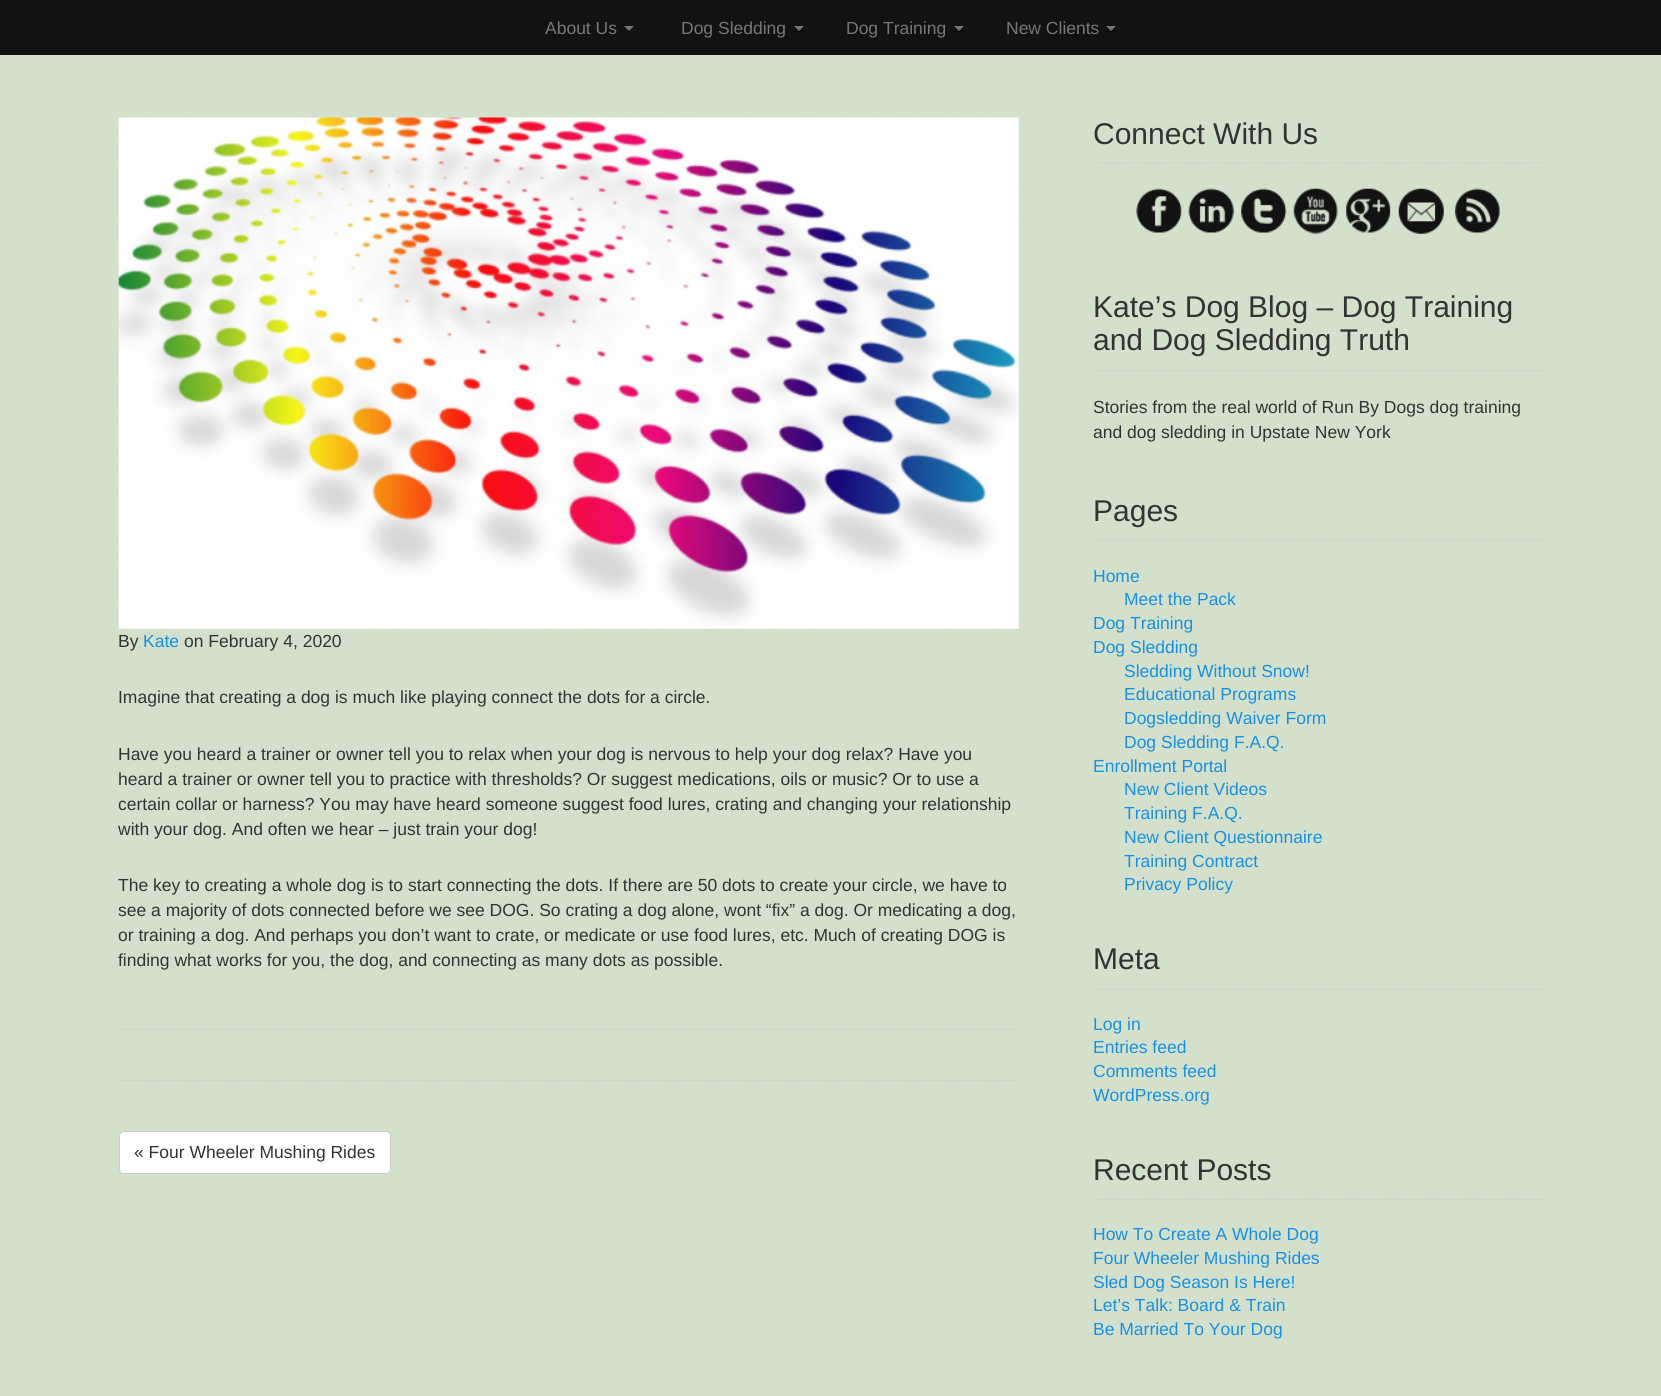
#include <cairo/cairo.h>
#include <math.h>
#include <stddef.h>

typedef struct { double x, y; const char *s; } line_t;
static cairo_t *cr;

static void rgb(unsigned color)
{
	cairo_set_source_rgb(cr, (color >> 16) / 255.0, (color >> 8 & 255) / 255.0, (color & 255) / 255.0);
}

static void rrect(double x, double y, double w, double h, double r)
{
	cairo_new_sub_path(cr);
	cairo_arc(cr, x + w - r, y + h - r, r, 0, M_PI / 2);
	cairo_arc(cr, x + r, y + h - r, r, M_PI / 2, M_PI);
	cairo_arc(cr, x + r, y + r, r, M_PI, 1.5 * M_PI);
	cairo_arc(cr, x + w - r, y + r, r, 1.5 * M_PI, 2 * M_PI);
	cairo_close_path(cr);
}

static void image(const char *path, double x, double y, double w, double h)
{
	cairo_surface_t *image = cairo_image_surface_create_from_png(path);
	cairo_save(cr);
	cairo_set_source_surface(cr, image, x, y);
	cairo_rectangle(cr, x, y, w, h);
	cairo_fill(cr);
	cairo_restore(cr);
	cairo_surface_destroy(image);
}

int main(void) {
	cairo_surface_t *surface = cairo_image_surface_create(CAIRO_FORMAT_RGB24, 1661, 1396);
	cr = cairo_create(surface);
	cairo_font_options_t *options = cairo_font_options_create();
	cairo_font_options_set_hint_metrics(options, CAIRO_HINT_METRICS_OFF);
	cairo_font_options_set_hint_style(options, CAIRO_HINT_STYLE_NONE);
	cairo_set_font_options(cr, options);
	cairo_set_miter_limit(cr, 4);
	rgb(0xd3e0cc);
	cairo_paint(cr);
	rgb(0x121212);
	cairo_rectangle(cr, 0, 0, 1661, 55);
	cairo_fill(cr);
	rgb(0x777777);
	cairo_new_path(cr);
	cairo_move_to(cr, 624, 26);
	cairo_line_to(cr, 634, 26);
	cairo_line_to(cr, 629, 31);
	cairo_close_path(cr);
	cairo_fill(cr);
	cairo_new_path(cr);
	cairo_move_to(cr, 794, 26);
	cairo_line_to(cr, 804, 26);
	cairo_line_to(cr, 799, 31);
	cairo_close_path(cr);
	cairo_fill(cr);
	cairo_new_path(cr);
	cairo_move_to(cr, 954, 26);
	cairo_line_to(cr, 964, 26);
	cairo_line_to(cr, 959, 31);
	cairo_close_path(cr);
	cairo_fill(cr);
	cairo_new_path(cr);
	cairo_move_to(cr, 1106, 26);
	cairo_line_to(cr, 1116, 26);
	cairo_line_to(cr, 1111, 31);
	cairo_close_path(cr);
	cairo_fill(cr);
	image("img/1.png", 118, 117, 901, 512);
	cairo_new_path(cr);
	cairo_move_to(cr, 119, 1029.5);
	cairo_line_to(cr, 1019, 1029.5);
	rgb(0xcccccc);
	cairo_set_line_width(cr, 1.2);
	cairo_set_dash(cr, (double[]){1.25, 1.25}, 2, 0);
	cairo_stroke(cr);
	cairo_new_path(cr);
	cairo_move_to(cr, 119, 1080.5);
	cairo_line_to(cr, 1019, 1080.5);
	cairo_stroke(cr);
	rgb(0xffffff);
	rrect(119.5, 1131.5, 271, 42, 4.5);
	cairo_fill_preserve(cr);
	rgb(0xcccccc);
	cairo_set_line_width(cr, 1);
	cairo_set_dash(cr, NULL, 0, 0);
	cairo_stroke(cr);
	cairo_new_path(cr);
	cairo_move_to(cr, 1094, 163);
	cairo_line_to(cr, 1544, 163);
	cairo_set_line_width(cr, 1.2);
	cairo_set_dash(cr, (double[]){1.25, 1.25}, 2, 0);
	cairo_stroke(cr);
	image("img/2.png", 1136, 188, 46, 45);
	image("img/3.png", 1188, 188, 46, 45);
	image("img/4.png", 1241, 188, 46, 45);
	image("img/5.png", 1293, 188, 45, 46);
	image("img/6.png", 1346, 188, 45, 45);
	image("img/7.png", 1398, 188, 46, 46);
	image("img/8.png", 1455, 188, 45, 45);
	cairo_new_path(cr);
	cairo_move_to(cr, 1094, 370.5);
	cairo_line_to(cr, 1544, 370.5);
	cairo_stroke(cr);
	cairo_new_path(cr);
	cairo_move_to(cr, 1094, 540.5);
	cairo_line_to(cr, 1544, 540.5);
	cairo_stroke(cr);
	cairo_new_path(cr);
	cairo_move_to(cr, 1094, 989.5);
	cairo_line_to(cr, 1544, 989.5);
	cairo_stroke(cr);
	cairo_new_path(cr);
	cairo_move_to(cr, 1094, 1199.5);
	cairo_line_to(cr, 1544, 1199.5);
	cairo_stroke(cr);
	cairo_select_font_face(cr, "Liberation Sans", CAIRO_FONT_SLANT_NORMAL, CAIRO_FONT_WEIGHT_NORMAL);
	cairo_set_font_size(cr, 17.5);
	rgb(0x777777);
	{
		static const line_t items[] = {
			{545, 34, "About Us"},
			{681, 34, "Dog Sledding"},
			{846, 34, "Dog Training"},
			{1006, 34, "New Clients"},
		};
		for (size_t i = 0; i < sizeof items / sizeof *items; i++) {
			cairo_move_to(cr, items[i].x, items[i].y);
			cairo_show_text(cr, items[i].s);
		}
	}
	rgb(0x333333);
	cairo_move_to(cr, 118, 647);
	cairo_show_text(cr, "By");
	rgb(0x1990e0);
	cairo_move_to(cr, 143, 647);
	cairo_show_text(cr, "Kate");
	rgb(0x333333);
	{
		static const line_t items[] = {
			{184, 647, "on February 4, 2020"},
			{118, 703, "Imagine that creating a dog is much like playing connect the dots for a circle."},
			{118, 760, "Have you heard a trainer or owner tell you to relax when your dog is nervous to help your dog relax? Have you"},
			{118, 785, "heard a trainer or owner tell you to practice with thresholds? Or suggest medications, oils or music? Or to use a"},
			{118, 810, "certain collar or harness? You may have heard someone suggest food lures, crating and changing your relationship"},
			{118, 835, "with your dog. And often we hear – just train your dog!"},
			{118, 891, "The key to creating a whole dog is to start connecting the dots. If there are 50 dots to create your circle, we have to"},
			{118, 916, "see a majority of dots connected before we see DOG. So crating a dog alone, wont “fix” a dog. Or medicating a dog,"},
			{118, 941, "or training a dog. And perhaps you don’t want to crate, or medicate or use food lures, etc. Much of creating DOG is"},
			{118, 966, "finding what works for you, the dog, and connecting as many dots as possible."},
			{134, 1158, "« Four Wheeler Mushing Rides"},
		};
		for (size_t i = 0; i < sizeof items / sizeof *items; i++) {
			cairo_move_to(cr, items[i].x, items[i].y);
			cairo_show_text(cr, items[i].s);
		}
	}
	cairo_set_font_size(cr, 30);
	{
		static const line_t items[] = {
			{1093, 144, "Connect With Us"},
			{1093, 317, "Kate’s Dog Blog – Dog Training"},
			{1093, 350, "and Dog Sledding Truth"},
		};
		for (size_t i = 0; i < sizeof items / sizeof *items; i++) {
			cairo_move_to(cr, items[i].x, items[i].y);
			cairo_show_text(cr, items[i].s);
		}
	}
	cairo_set_font_size(cr, 17.5);
	cairo_move_to(cr, 1093, 413);
	cairo_show_text(cr, "Stories from the real world of Run By Dogs dog training");
	cairo_move_to(cr, 1093, 438);
	cairo_show_text(cr, "and dog sledding in Upstate New York");
	cairo_set_font_size(cr, 30);
	cairo_move_to(cr, 1093, 521);
	cairo_show_text(cr, "Pages");
	cairo_set_font_size(cr, 17.5);
	rgb(0x1990e0);
	{
		static const line_t items[] = {
			{1093, 582, "Home"},
			{1124, 605, "Meet the Pack"},
			{1093, 629, "Dog Training"},
			{1093, 653, "Dog Sledding"},
			{1124, 677, "Sledding Without Snow!"},
			{1124, 700, "Educational Programs"},
			{1124, 724, "Dogsledding Waiver Form"},
			{1124, 748, "Dog Sledding F.A.Q."},
			{1093, 772, "Enrollment Portal"},
			{1124, 795, "New Client Videos"},
			{1124, 819, "Training F.A.Q."},
			{1124, 843, "New Client Questionnaire"},
			{1124, 867, "Training Contract"},
			{1124, 890, "Privacy Policy"},
		};
		for (size_t i = 0; i < sizeof items / sizeof *items; i++) {
			cairo_move_to(cr, items[i].x, items[i].y);
			cairo_show_text(cr, items[i].s);
		}
	}
	cairo_set_font_size(cr, 30);
	rgb(0x333333);
	cairo_move_to(cr, 1093, 969);
	cairo_show_text(cr, "Meta");
	cairo_set_font_size(cr, 17.5);
	rgb(0x1990e0);
	{
		static const line_t items[] = {
			{1093, 1030, "Log in"},
			{1093, 1053, "Entries feed"},
			{1093, 1077, "Comments feed"},
			{1093, 1101, "WordPress.org"},
		};
		for (size_t i = 0; i < sizeof items / sizeof *items; i++) {
			cairo_move_to(cr, items[i].x, items[i].y);
			cairo_show_text(cr, items[i].s);
		}
	}
	cairo_set_font_size(cr, 30);
	rgb(0x333333);
	cairo_move_to(cr, 1093, 1180);
	cairo_show_text(cr, "Recent Posts");
	cairo_set_font_size(cr, 17.5);
	rgb(0x1990e0);
	{
		static const line_t items[] = {
			{1093, 1240, "How To Create A Whole Dog"},
			{1093, 1264, "Four Wheeler Mushing Rides"},
			{1093, 1288, "Sled Dog Season Is Here!"},
			{1093, 1311, "Let’s Talk: Board & Train"},
			{1093, 1335, "Be Married To Your Dog"},
		};
		for (size_t i = 0; i < sizeof items / sizeof *items; i++) {
			cairo_move_to(cr, items[i].x, items[i].y);
			cairo_show_text(cr, items[i].s);
		}
	}
	cairo_surface_write_to_png(surface, "page.png");
	cairo_font_options_destroy(options);
	cairo_destroy(cr);
	cairo_surface_destroy(surface);
	return 0;
}
